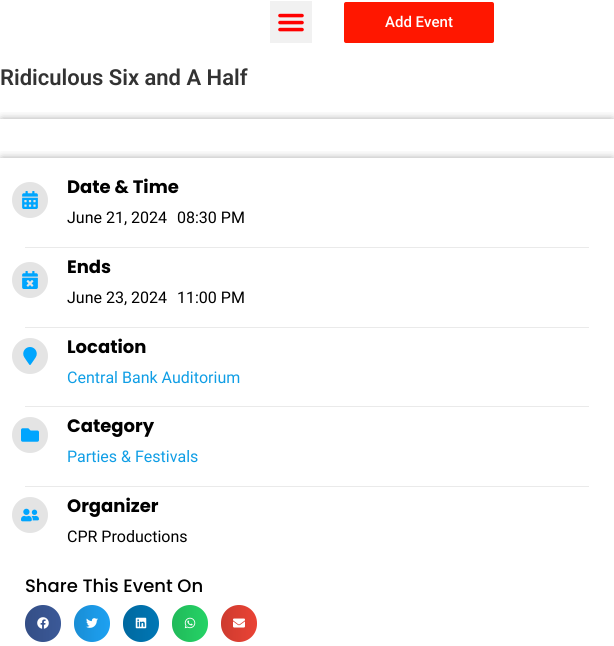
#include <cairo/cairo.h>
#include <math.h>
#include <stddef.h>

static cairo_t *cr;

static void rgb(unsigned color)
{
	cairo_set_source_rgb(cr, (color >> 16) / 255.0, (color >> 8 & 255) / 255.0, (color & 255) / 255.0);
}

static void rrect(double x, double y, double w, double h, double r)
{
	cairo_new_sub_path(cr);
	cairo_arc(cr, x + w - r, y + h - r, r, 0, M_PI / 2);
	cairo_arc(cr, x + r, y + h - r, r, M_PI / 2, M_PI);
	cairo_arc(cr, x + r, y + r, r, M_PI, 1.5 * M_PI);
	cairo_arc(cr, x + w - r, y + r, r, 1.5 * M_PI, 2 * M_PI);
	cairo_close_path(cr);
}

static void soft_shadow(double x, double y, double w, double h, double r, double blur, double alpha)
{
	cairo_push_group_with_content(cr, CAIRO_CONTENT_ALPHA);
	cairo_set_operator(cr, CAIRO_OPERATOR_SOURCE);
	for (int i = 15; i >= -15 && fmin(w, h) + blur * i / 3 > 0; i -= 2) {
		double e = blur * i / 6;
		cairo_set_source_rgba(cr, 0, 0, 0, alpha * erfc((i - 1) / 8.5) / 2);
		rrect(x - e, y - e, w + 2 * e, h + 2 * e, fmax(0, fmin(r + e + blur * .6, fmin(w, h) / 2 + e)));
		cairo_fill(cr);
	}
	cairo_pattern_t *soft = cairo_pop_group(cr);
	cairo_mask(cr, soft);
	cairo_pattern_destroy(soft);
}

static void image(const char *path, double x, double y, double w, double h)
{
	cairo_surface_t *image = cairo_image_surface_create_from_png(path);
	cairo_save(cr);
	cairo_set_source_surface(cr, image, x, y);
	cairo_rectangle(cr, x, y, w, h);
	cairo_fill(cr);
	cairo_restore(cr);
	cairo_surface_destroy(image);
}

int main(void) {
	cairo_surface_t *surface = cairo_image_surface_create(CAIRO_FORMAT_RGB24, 614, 646);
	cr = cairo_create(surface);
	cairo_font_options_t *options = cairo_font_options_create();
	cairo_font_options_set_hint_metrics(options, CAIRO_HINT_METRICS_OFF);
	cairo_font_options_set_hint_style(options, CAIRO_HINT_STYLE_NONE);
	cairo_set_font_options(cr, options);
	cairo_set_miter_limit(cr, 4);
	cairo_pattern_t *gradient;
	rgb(0xffffff);
	cairo_paint(cr);
	rgb(0xf1f1f1);
	cairo_rectangle(cr, 270, 1, 42, 42);
	cairo_fill(cr);
	image("img/1.png", 278, 13, 26, 19);
	rgb(0xff1700);
	rrect(344, 2, 150, 41, 2);
	cairo_fill(cr);
	cairo_save(cr);
	cairo_rectangle(cr, 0, 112, 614, 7);
	cairo_clip(cr);
	rgb(0x000000);
	soft_shadow(2, 121, 610, 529, 0, 5, 0.5);
	cairo_restore(cr);
	cairo_save(cr);
	cairo_rectangle(cr, 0, 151, 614, 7);
	cairo_clip(cr);
	rgb(0x000000);
	soft_shadow(2, 160, 610, 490, 0, 5, 0.5);
	cairo_restore(cr);
	rgb(0xe4e4e4);
	cairo_arc(cr, 30, 200, 18, 0, 2 * M_PI);
	cairo_fill(cr);
	image("img/2.png", 22, 191, 16, 18);
	rgb(0xeaeaea);
	cairo_rectangle(cr, 25, 247, 564, 1);
	cairo_fill(cr);
	rgb(0xe4e4e4);
	cairo_arc(cr, 30, 280, 18, 0, 2 * M_PI);
	cairo_fill(cr);
	image("img/3.png", 22, 271, 16, 18);
	rgb(0xeaeaea);
	cairo_rectangle(cr, 25, 327, 564, 1);
	cairo_fill(cr);
	rgb(0xe4e4e4);
	cairo_arc(cr, 30, 356, 18, 0, 2 * M_PI);
	cairo_fill(cr);
	image("img/4.png", 23, 347, 14, 18);
	rgb(0xeaeaea);
	cairo_rectangle(cr, 25, 406, 564, 1);
	cairo_fill(cr);
	rgb(0xe4e4e4);
	cairo_arc(cr, 30, 435, 18, 0, 2 * M_PI);
	cairo_fill(cr);
	image("img/5.png", 21, 428, 18, 14);
	rgb(0xeaeaea);
	cairo_rectangle(cr, 25, 486, 564, 1);
	cairo_fill(cr);
	rgb(0xe4e4e4);
	cairo_arc(cr, 30, 515, 18, 0, 2 * M_PI);
	cairo_fill(cr);
	image("img/6.png", 21, 508, 18, 14);
	rgb(0x3b5998);
	rrect(25, 605, 36, 37, 18);
	cairo_fill(cr);
	gradient = cairo_pattern_create_linear(25, 624, 61, 624);
	cairo_pattern_add_color_stop_rgba(gradient, 0, 0, 0, 0, 0.12);
	cairo_pattern_add_color_stop_rgba(gradient, 1, 0, 0, 0, 0);
	cairo_set_source(cr, gradient);
	cairo_pattern_destroy(gradient);
	rrect(25, 605, 36, 37, 18);
	cairo_fill(cr);
	image("img/7.png", 37, 617, 12, 12);
	rgb(0x1da1f2);
	rrect(74, 605, 36, 37, 18);
	cairo_fill(cr);
	gradient = cairo_pattern_create_linear(74, 624, 110, 624);
	cairo_pattern_add_color_stop_rgba(gradient, 0, 0, 0, 0, 0.12);
	cairo_pattern_add_color_stop_rgba(gradient, 1, 0, 0, 0, 0);
	cairo_set_source(cr, gradient);
	cairo_pattern_destroy(gradient);
	rrect(74, 605, 36, 37, 18);
	cairo_fill(cr);
	image("img/8.png", 86, 618, 12, 10);
	rgb(0x0077b5);
	rrect(123, 605, 36, 37, 18);
	cairo_fill(cr);
	gradient = cairo_pattern_create_linear(123, 624, 159, 624);
	cairo_pattern_add_color_stop_rgba(gradient, 0, 0, 0, 0, 0.12);
	cairo_pattern_add_color_stop_rgba(gradient, 1, 0, 0, 0, 0);
	cairo_set_source(cr, gradient);
	cairo_pattern_destroy(gradient);
	rrect(123, 605, 36, 37, 18);
	cairo_fill(cr);
	image("img/9.png", 135, 617, 12, 12);
	rgb(0x25d366);
	rrect(172, 605, 36, 37, 18);
	cairo_fill(cr);
	gradient = cairo_pattern_create_linear(172, 624, 208, 624);
	cairo_pattern_add_color_stop_rgba(gradient, 0, 0, 0, 0, 0.12);
	cairo_pattern_add_color_stop_rgba(gradient, 1, 0, 0, 0, 0);
	cairo_set_source(cr, gradient);
	cairo_pattern_destroy(gradient);
	rrect(172, 605, 36, 37, 18);
	cairo_fill(cr);
	image("img/10.png", 184, 617, 12, 12);
	rgb(0xea4335);
	rrect(221, 605, 36, 37, 18);
	cairo_fill(cr);
	gradient = cairo_pattern_create_linear(221, 624, 257, 624);
	cairo_pattern_add_color_stop_rgba(gradient, 0, 0, 0, 0, 0.12);
	cairo_pattern_add_color_stop_rgba(gradient, 1, 0, 0, 0, 0);
	cairo_set_source(cr, gradient);
	cairo_pattern_destroy(gradient);
	rrect(221, 605, 36, 37, 18);
	cairo_fill(cr);
	image("img/11.png", 233, 618, 12, 10);
	cairo_select_font_face(cr, "Roboto Medium", CAIRO_FONT_SLANT_NORMAL, CAIRO_FONT_WEIGHT_NORMAL);
	cairo_set_font_size(cr, 15);
	rgb(0xffffff);
	cairo_move_to(cr, 385, 27);
	cairo_show_text(cr, "Add Event");
	cairo_select_font_face(cr, "Roboto SemiBold", CAIRO_FONT_SLANT_NORMAL, CAIRO_FONT_WEIGHT_NORMAL);
	cairo_set_font_size(cr, 22);
	rgb(0x333333);
	cairo_move_to(cr, 0, 85);
	cairo_show_text(cr, "Ridiculous Six and A Half");
	cairo_select_font_face(cr, "Poppins", CAIRO_FONT_SLANT_NORMAL, CAIRO_FONT_WEIGHT_BOLD);
	cairo_set_font_size(cr, 18);
	rgb(0x000000);
	cairo_move_to(cr, 67, 193);
	cairo_show_text(cr, "Date & Time");
	cairo_select_font_face(cr, "Roboto", CAIRO_FONT_SLANT_NORMAL, CAIRO_FONT_WEIGHT_NORMAL);
	cairo_set_font_size(cr, 16);
	cairo_move_to(cr, 67, 223);
	cairo_show_text(cr, "June 21, 2024");
	cairo_move_to(cr, 177, 223);
	cairo_show_text(cr, "08:30 PM");
	cairo_select_font_face(cr, "Poppins", CAIRO_FONT_SLANT_NORMAL, CAIRO_FONT_WEIGHT_BOLD);
	cairo_set_font_size(cr, 18);
	cairo_move_to(cr, 67, 273);
	cairo_show_text(cr, "Ends");
	cairo_select_font_face(cr, "Roboto", CAIRO_FONT_SLANT_NORMAL, CAIRO_FONT_WEIGHT_NORMAL);
	cairo_set_font_size(cr, 16);
	cairo_move_to(cr, 67, 303);
	cairo_show_text(cr, "June 23, 2024");
	cairo_move_to(cr, 177, 303);
	cairo_show_text(cr, "11:00 PM");
	cairo_select_font_face(cr, "Poppins", CAIRO_FONT_SLANT_NORMAL, CAIRO_FONT_WEIGHT_BOLD);
	cairo_set_font_size(cr, 18);
	cairo_move_to(cr, 67, 353);
	cairo_show_text(cr, "Location");
	cairo_select_font_face(cr, "Roboto", CAIRO_FONT_SLANT_NORMAL, CAIRO_FONT_WEIGHT_NORMAL);
	cairo_set_font_size(cr, 16);
	rgb(0x109ee5);
	cairo_move_to(cr, 67, 383);
	cairo_show_text(cr, "Central Bank Auditorium");
	cairo_select_font_face(cr, "Poppins", CAIRO_FONT_SLANT_NORMAL, CAIRO_FONT_WEIGHT_BOLD);
	cairo_set_font_size(cr, 18);
	rgb(0x000000);
	cairo_move_to(cr, 67, 432);
	cairo_show_text(cr, "Category");
	cairo_select_font_face(cr, "Roboto", CAIRO_FONT_SLANT_NORMAL, CAIRO_FONT_WEIGHT_NORMAL);
	cairo_set_font_size(cr, 16);
	rgb(0x109ee5);
	cairo_move_to(cr, 67, 462);
	cairo_show_text(cr, "Parties & Festivals");
	cairo_select_font_face(cr, "Poppins", CAIRO_FONT_SLANT_NORMAL, CAIRO_FONT_WEIGHT_BOLD);
	cairo_set_font_size(cr, 18);
	rgb(0x000000);
	cairo_move_to(cr, 67, 512);
	cairo_show_text(cr, "Organizer");
	cairo_select_font_face(cr, "Roboto", CAIRO_FONT_SLANT_NORMAL, CAIRO_FONT_WEIGHT_NORMAL);
	cairo_set_font_size(cr, 16);
	cairo_move_to(cr, 67, 542);
	cairo_show_text(cr, "CPR Productions");
	cairo_select_font_face(cr, "Poppins Medium", CAIRO_FONT_SLANT_NORMAL, CAIRO_FONT_WEIGHT_NORMAL);
	cairo_set_font_size(cr, 18);
	cairo_move_to(cr, 25, 592);
	cairo_show_text(cr, "Share This Event On");
	cairo_surface_write_to_png(surface, "page.png");
	cairo_font_options_destroy(options);
	cairo_destroy(cr);
	cairo_surface_destroy(surface);
	return 0;
}
